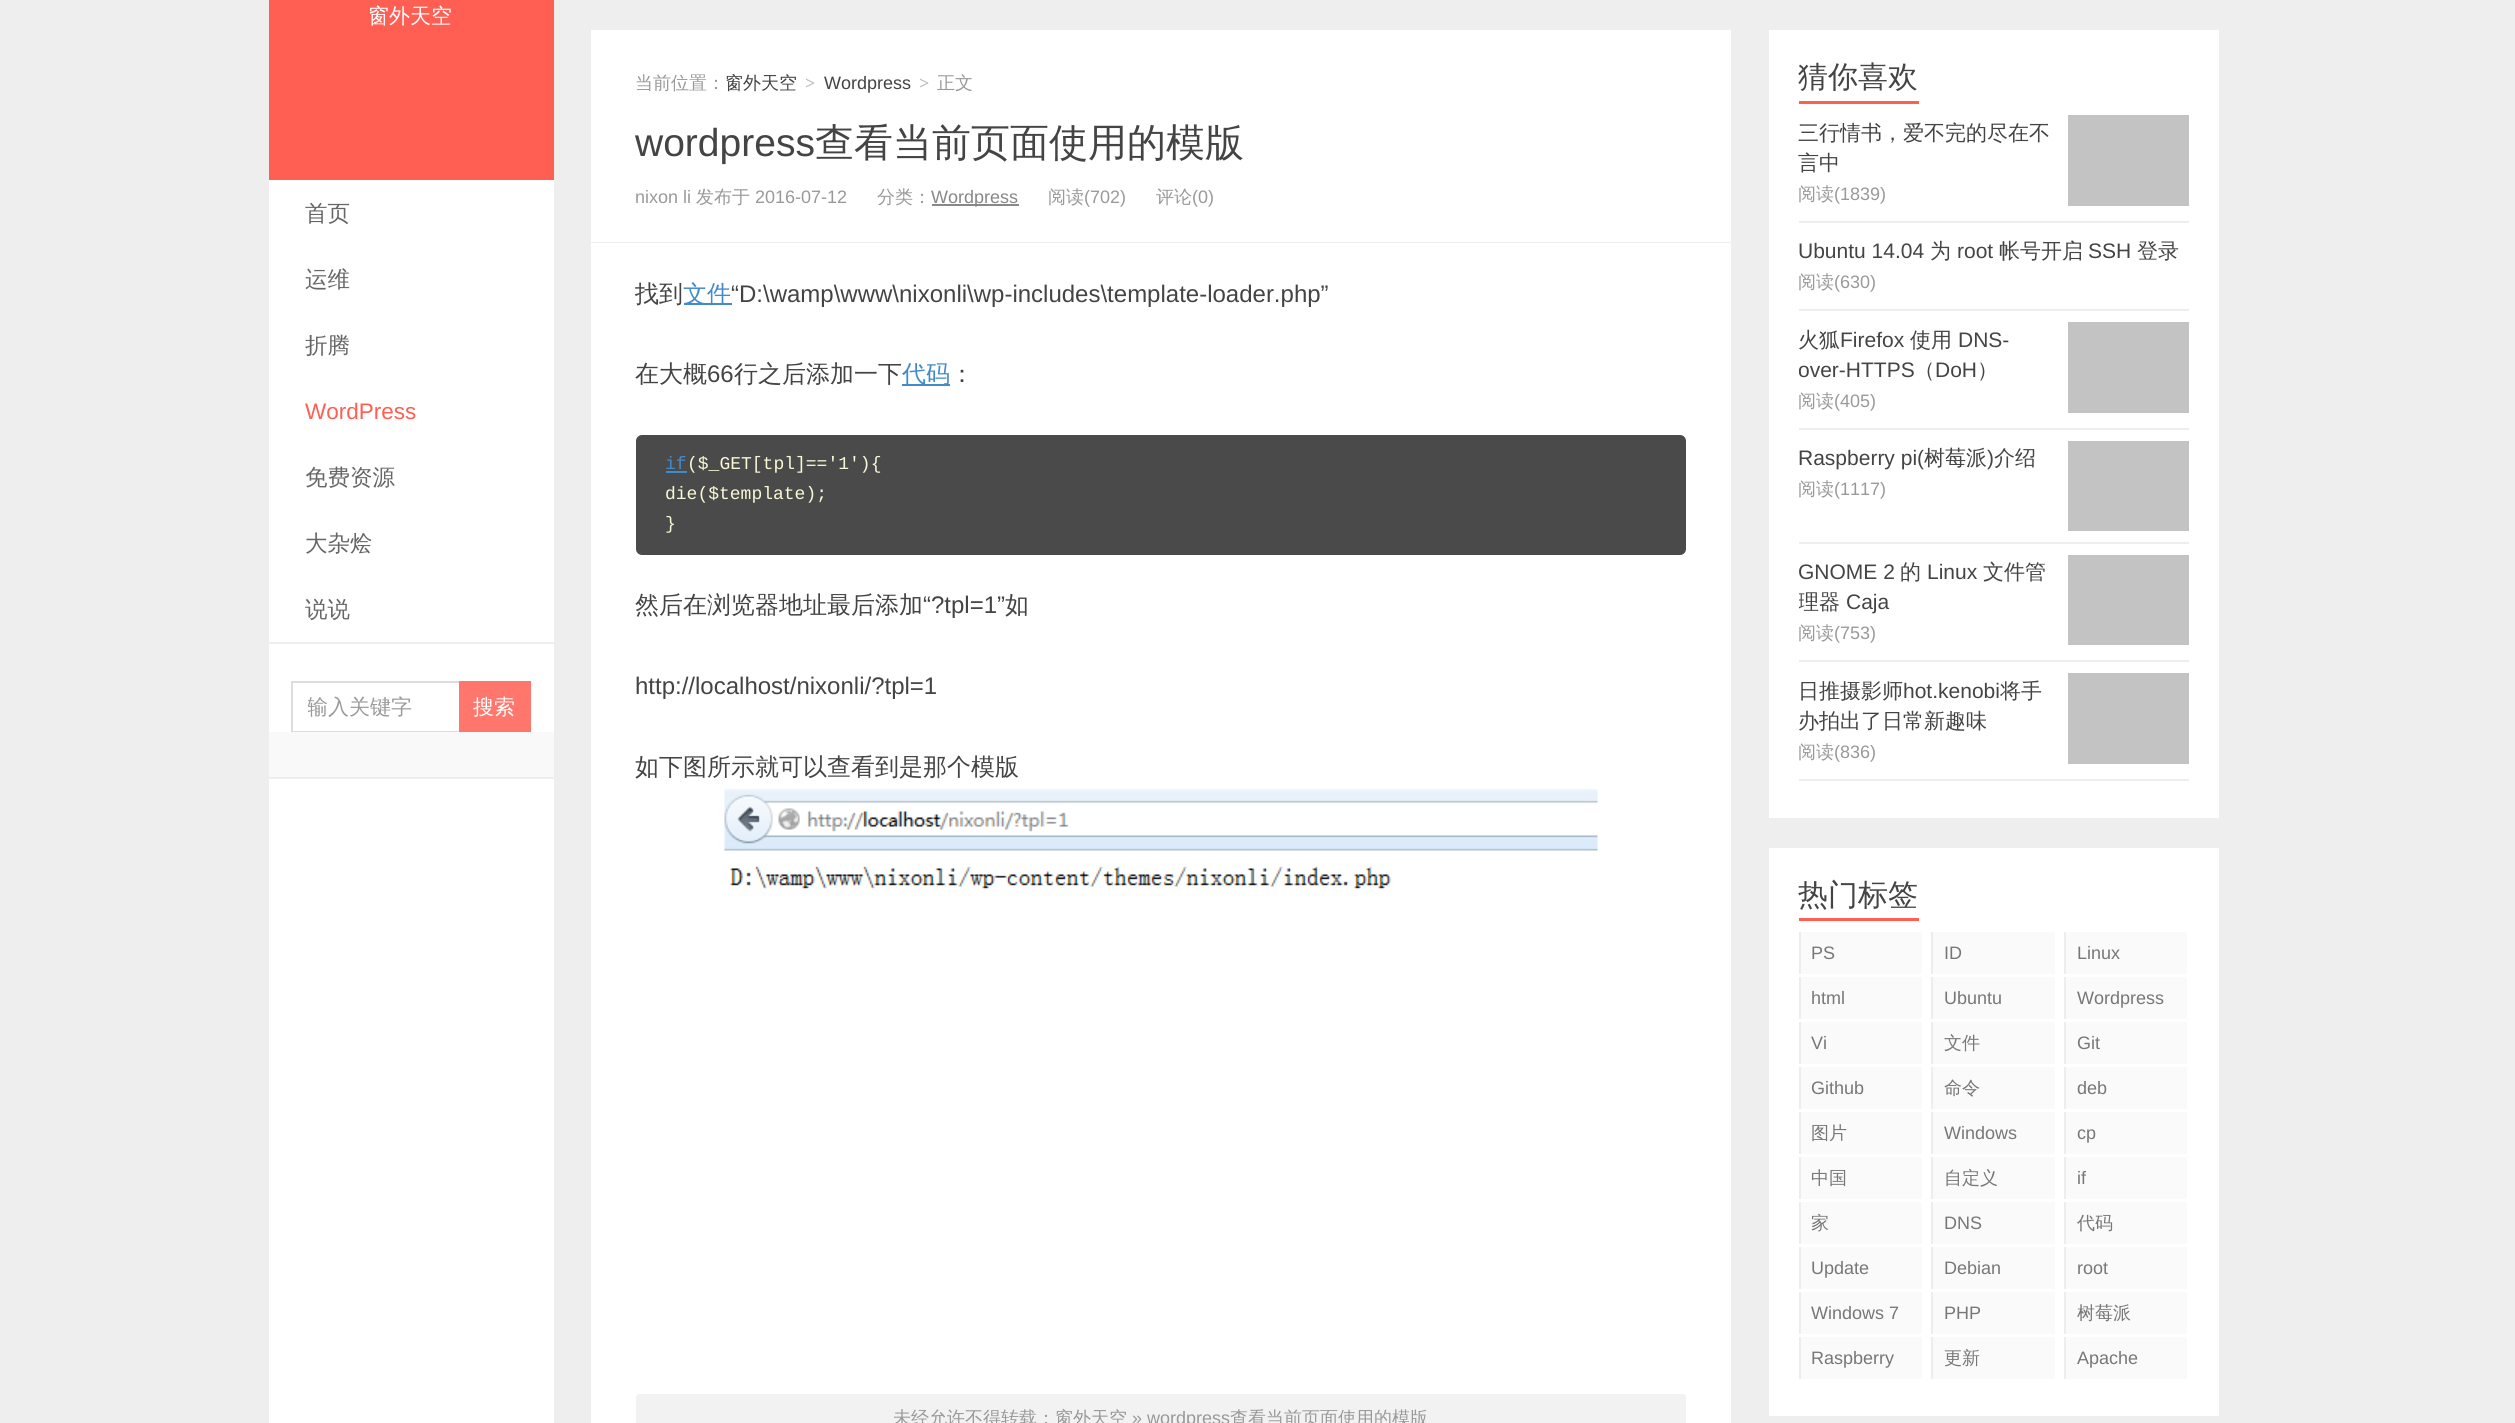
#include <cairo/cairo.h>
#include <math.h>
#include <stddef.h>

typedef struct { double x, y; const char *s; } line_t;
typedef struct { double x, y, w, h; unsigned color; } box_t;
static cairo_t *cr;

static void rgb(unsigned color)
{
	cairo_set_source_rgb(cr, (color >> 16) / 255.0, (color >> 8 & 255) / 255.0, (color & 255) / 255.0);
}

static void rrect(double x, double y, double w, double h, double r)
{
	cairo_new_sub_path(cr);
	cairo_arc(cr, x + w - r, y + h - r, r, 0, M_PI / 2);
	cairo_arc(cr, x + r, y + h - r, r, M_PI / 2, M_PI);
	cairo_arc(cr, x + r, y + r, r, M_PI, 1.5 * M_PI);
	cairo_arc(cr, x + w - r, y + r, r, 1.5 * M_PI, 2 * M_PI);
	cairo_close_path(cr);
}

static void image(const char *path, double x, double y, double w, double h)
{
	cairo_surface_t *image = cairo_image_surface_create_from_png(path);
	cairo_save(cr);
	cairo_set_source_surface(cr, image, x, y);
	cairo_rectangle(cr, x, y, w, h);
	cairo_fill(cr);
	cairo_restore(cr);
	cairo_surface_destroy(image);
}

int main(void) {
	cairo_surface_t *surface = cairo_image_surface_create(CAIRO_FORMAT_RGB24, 2515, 1423);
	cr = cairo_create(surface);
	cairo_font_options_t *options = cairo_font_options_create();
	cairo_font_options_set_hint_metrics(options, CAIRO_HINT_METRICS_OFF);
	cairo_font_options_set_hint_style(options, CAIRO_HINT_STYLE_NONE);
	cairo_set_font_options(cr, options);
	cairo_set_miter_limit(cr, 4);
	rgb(0xeeeeee);
	cairo_paint(cr);
	{
		static const box_t items[] = {
			{269, 180, 285, 1243, 0xffffff},
			{269, 0, 285, 180, 0xff5e52},
			{269, 642, 285, 2, 0xeeeeee},
			{291, 681, 168, 2, 0xdddddd},
			{291, 731, 168, 1, 0xdddddd},
			{291, 681, 2, 51, 0xdddddd},
			{459, 681, 72, 51, 0xff766c},
			{269, 732, 285, 45, 0xf9f9f9},
			{269, 777, 285, 2, 0xeeeeee},
			{591, 30, 1140, 212, 0xffffff},
			{932, 204, 87, 2, 0x888888},
			{591, 243, 1140, 1180, 0xffffff},
			{684, 303, 48, 2, 0x428bca},
			{902, 384, 48, 2, 0x428bca},
		};
		for (size_t i = 0; i < sizeof items / sizeof *items; i++) {
			rgb(items[i].color);
			cairo_rectangle(cr, items[i].x, items[i].y, items[i].w, items[i].h);
			cairo_fill(cr);
		}
	}
	rgb(0x4a4a4a);
	rrect(636, 435, 1050, 120, 6);
	cairo_fill(cr);
	rgb(0x428bca);
	cairo_rectangle(cr, 666, 471, 21, 2);
	cairo_fill(cr);
	image("img/1.png", 724, 789, 874, 100);
	rgb(0xf2f2f2);
	rrect(636, 1394, 1050, 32, 3);
	cairo_fill(cr);
	{
		static const box_t items[] = {
			{1769, 30, 450, 788, 0xffffff},
			{1799, 101, 120, 3, 0xff5e52},
			{1799, 221, 390, 2, 0xeeeeee},
			{2068, 115, 121, 91, 0xc3c3c3},
			{1799, 309, 390, 2, 0xeeeeee},
			{1799, 428, 390, 2, 0xeeeeee},
			{2068, 322, 121, 91, 0xc3c3c3},
			{1799, 542, 390, 2, 0xeeeeee},
			{2068, 441, 121, 90, 0xc3c3c3},
			{1799, 660, 390, 2, 0xeeeeee},
			{2068, 555, 121, 90, 0xc3c3c3},
			{1799, 779, 390, 2, 0xeeeeee},
			{2068, 673, 121, 91, 0xc3c3c3},
			{1769, 848, 450, 568, 0xffffff},
			{1799, 918, 120, 3, 0xff5e52},
			{1801, 932, 121, 42, 0xfafafa},
			{1799, 932, 2, 42, 0xededed},
			{1933, 932, 122, 42, 0xfafafa},
			{1931, 932, 2, 42, 0xededed},
			{2066, 932, 121, 42, 0xfafafa},
			{2064, 932, 2, 42, 0xededed},
			{1801, 977, 121, 42, 0xfafafa},
			{1799, 977, 2, 42, 0xededed},
			{1933, 977, 122, 42, 0xfafafa},
			{1931, 977, 2, 42, 0xededed},
			{2066, 977, 121, 42, 0xfafafa},
			{2064, 977, 2, 42, 0xededed},
			{1801, 1022, 121, 42, 0xfafafa},
			{1799, 1022, 2, 42, 0xededed},
			{1933, 1022, 122, 42, 0xfafafa},
			{1931, 1022, 2, 42, 0xededed},
			{2066, 1022, 121, 42, 0xfafafa},
			{2064, 1022, 2, 42, 0xededed},
			{1801, 1067, 121, 42, 0xfafafa},
			{1799, 1067, 2, 42, 0xededed},
			{1933, 1067, 122, 42, 0xfafafa},
			{1931, 1067, 2, 42, 0xededed},
			{2066, 1067, 121, 42, 0xfafafa},
			{2064, 1067, 2, 42, 0xededed},
			{1801, 1112, 121, 42, 0xfafafa},
			{1799, 1112, 2, 42, 0xededed},
			{1933, 1112, 122, 42, 0xfafafa},
			{1931, 1112, 2, 42, 0xededed},
			{2066, 1112, 121, 42, 0xfafafa},
			{2064, 1112, 2, 42, 0xededed},
			{1801, 1157, 121, 42, 0xfafafa},
			{1799, 1157, 2, 42, 0xededed},
			{1933, 1157, 122, 42, 0xfafafa},
			{1931, 1157, 2, 42, 0xededed},
			{2066, 1157, 121, 42, 0xfafafa},
			{2064, 1157, 2, 42, 0xededed},
			{1801, 1202, 121, 42, 0xfafafa},
			{1799, 1202, 2, 42, 0xededed},
			{1933, 1202, 122, 42, 0xfafafa},
			{1931, 1202, 2, 42, 0xededed},
			{2066, 1202, 121, 42, 0xfafafa},
			{2064, 1202, 2, 42, 0xededed},
			{1801, 1247, 121, 42, 0xfafafa},
			{1799, 1247, 2, 42, 0xededed},
			{1933, 1247, 122, 42, 0xfafafa},
			{1931, 1247, 2, 42, 0xededed},
			{2066, 1247, 121, 42, 0xfafafa},
			{2064, 1247, 2, 42, 0xededed},
			{1801, 1292, 121, 42, 0xfafafa},
			{1799, 1292, 2, 42, 0xededed},
			{1933, 1292, 122, 42, 0xfafafa},
			{1931, 1292, 2, 42, 0xededed},
			{2066, 1292, 121, 42, 0xfafafa},
			{2064, 1292, 2, 42, 0xededed},
			{1801, 1337, 121, 42, 0xfafafa},
			{1799, 1337, 2, 42, 0xededed},
			{1933, 1337, 122, 42, 0xfafafa},
			{1931, 1337, 2, 42, 0xededed},
			{2066, 1337, 121, 42, 0xfafafa},
			{2064, 1337, 2, 42, 0xededed},
		};
		for (size_t i = 0; i < sizeof items / sizeof *items; i++) {
			rgb(items[i].color);
			cairo_rectangle(cr, items[i].x, items[i].y, items[i].w, items[i].h);
			cairo_fill(cr);
		}
	}
	cairo_select_font_face(cr, "WenQuanYi Zen Hei Medium", CAIRO_FONT_SLANT_NORMAL, CAIRO_FONT_WEIGHT_NORMAL);
	cairo_set_font_size(cr, 21);
	rgb(0xffffff);
	cairo_move_to(cr, 368, 23);
	cairo_show_text(cr, "窗外天空");
	cairo_set_font_size(cr, 22.5);
	rgb(0x666666);
	{
		static const line_t items[] = {
			{305, 221, "首页"},
			{305, 287, "运维"},
			{305, 353, "折腾"},
		};
		for (size_t i = 0; i < sizeof items / sizeof *items; i++) {
			cairo_move_to(cr, items[i].x, items[i].y);
			cairo_show_text(cr, items[i].s);
		}
	}
	cairo_select_font_face(cr, "Liberation Sans", CAIRO_FONT_SLANT_NORMAL, CAIRO_FONT_WEIGHT_NORMAL);
	rgb(0xff5e52);
	cairo_move_to(cr, 305, 419);
	cairo_show_text(cr, "WordPress");
	cairo_select_font_face(cr, "WenQuanYi Zen Hei Medium", CAIRO_FONT_SLANT_NORMAL, CAIRO_FONT_WEIGHT_NORMAL);
	rgb(0x666666);
	{
		static const line_t items[] = {
			{305, 485, "免费资源"},
			{305, 551, "大杂烩"},
			{305, 617, "说说"},
		};
		for (size_t i = 0; i < sizeof items / sizeof *items; i++) {
			cairo_move_to(cr, items[i].x, items[i].y);
			cairo_show_text(cr, items[i].s);
		}
	}
	cairo_save(cr);
	cairo_rectangle(cr, 308, 695, 144, 27);
	cairo_clip(cr);
	cairo_set_font_size(cr, 21);
	rgb(0x999999);
	cairo_move_to(cr, 307, 714);
	cairo_show_text(cr, "输入关键字");
	cairo_restore(cr);
	cairo_set_font_size(cr, 21);
	rgb(0xffffff);
	cairo_move_to(cr, 473, 714);
	cairo_show_text(cr, "搜索");
	cairo_set_font_size(cr, 18);
	rgb(0x999999);
	cairo_move_to(cr, 635, 89);
	cairo_show_text(cr, "当前位置：");
	rgb(0x444444);
	cairo_move_to(cr, 725, 89);
	cairo_show_text(cr, "窗外天空");
	cairo_select_font_face(cr, "Liberation Serif", CAIRO_FONT_SLANT_NORMAL, CAIRO_FONT_WEIGHT_BOLD);
	rgb(0xbbbbbb);
	cairo_move_to(cr, 805, 89);
	cairo_show_text(cr, ">");
	cairo_select_font_face(cr, "Liberation Sans", CAIRO_FONT_SLANT_NORMAL, CAIRO_FONT_WEIGHT_NORMAL);
	rgb(0x444444);
	cairo_move_to(cr, 824, 89);
	cairo_show_text(cr, "Wordpress");
	cairo_select_font_face(cr, "Liberation Serif", CAIRO_FONT_SLANT_NORMAL, CAIRO_FONT_WEIGHT_BOLD);
	rgb(0xbbbbbb);
	cairo_move_to(cr, 919, 89);
	cairo_show_text(cr, ">");
	cairo_select_font_face(cr, "WenQuanYi Zen Hei Medium", CAIRO_FONT_SLANT_NORMAL, CAIRO_FONT_WEIGHT_NORMAL);
	rgb(0x999999);
	cairo_move_to(cr, 937, 89);
	cairo_show_text(cr, "正文");
	cairo_select_font_face(cr, "Liberation Sans", CAIRO_FONT_SLANT_NORMAL, CAIRO_FONT_WEIGHT_NORMAL);
	cairo_set_font_size(cr, 39);
	rgb(0x444444);
	cairo_move_to(cr, 635, 156);
	cairo_show_text(cr, "wordpress");
	cairo_select_font_face(cr, "WenQuanYi Zen Hei Medium", CAIRO_FONT_SLANT_NORMAL, CAIRO_FONT_WEIGHT_NORMAL);
	cairo_move_to(cr, 815, 156);
	cairo_show_text(cr, "查看当前页面使用的模版");
	cairo_select_font_face(cr, "Liberation Sans", CAIRO_FONT_SLANT_NORMAL, CAIRO_FONT_WEIGHT_NORMAL);
	cairo_set_font_size(cr, 18);
	rgb(0x999999);
	cairo_move_to(cr, 635, 203);
	cairo_show_text(cr, "nixon li");
	cairo_select_font_face(cr, "WenQuanYi Zen Hei Medium", CAIRO_FONT_SLANT_NORMAL, CAIRO_FONT_WEIGHT_NORMAL);
	cairo_move_to(cr, 696, 203);
	cairo_show_text(cr, "发布于");
	cairo_select_font_face(cr, "Liberation Sans", CAIRO_FONT_SLANT_NORMAL, CAIRO_FONT_WEIGHT_NORMAL);
	cairo_move_to(cr, 755, 203);
	cairo_show_text(cr, "2016-07-12");
	cairo_select_font_face(cr, "WenQuanYi Zen Hei Medium", CAIRO_FONT_SLANT_NORMAL, CAIRO_FONT_WEIGHT_NORMAL);
	cairo_move_to(cr, 877, 203);
	cairo_show_text(cr, "分类：");
	cairo_select_font_face(cr, "Liberation Sans", CAIRO_FONT_SLANT_NORMAL, CAIRO_FONT_WEIGHT_NORMAL);
	rgb(0x888888);
	cairo_move_to(cr, 931, 203);
	cairo_show_text(cr, "Wordpress");
	cairo_select_font_face(cr, "WenQuanYi Zen Hei Medium", CAIRO_FONT_SLANT_NORMAL, CAIRO_FONT_WEIGHT_NORMAL);
	rgb(0x999999);
	cairo_move_to(cr, 1048, 203);
	cairo_show_text(cr, "阅读");
	cairo_select_font_face(cr, "Liberation Sans", CAIRO_FONT_SLANT_NORMAL, CAIRO_FONT_WEIGHT_NORMAL);
	cairo_move_to(cr, 1084, 203);
	cairo_show_text(cr, "(702)");
	cairo_select_font_face(cr, "WenQuanYi Zen Hei Medium", CAIRO_FONT_SLANT_NORMAL, CAIRO_FONT_WEIGHT_NORMAL);
	cairo_move_to(cr, 1156, 203);
	cairo_show_text(cr, "评论");
	cairo_select_font_face(cr, "Liberation Sans", CAIRO_FONT_SLANT_NORMAL, CAIRO_FONT_WEIGHT_NORMAL);
	cairo_move_to(cr, 1192, 203);
	cairo_show_text(cr, "(0)");
	cairo_select_font_face(cr, "WenQuanYi Zen Hei Medium", CAIRO_FONT_SLANT_NORMAL, CAIRO_FONT_WEIGHT_NORMAL);
	cairo_set_font_size(cr, 24);
	rgb(0x444444);
	cairo_move_to(cr, 635, 302);
	cairo_show_text(cr, "找到");
	rgb(0x428bca);
	cairo_move_to(cr, 683, 302);
	cairo_show_text(cr, "文件");
	cairo_select_font_face(cr, "Liberation Sans", CAIRO_FONT_SLANT_NORMAL, CAIRO_FONT_WEIGHT_NORMAL);
	rgb(0x444444);
	cairo_move_to(cr, 731, 302);
	cairo_show_text(cr, "“D:\\wamp\\www\\nixonli\\wp-includes\\template-loader.php”");
	cairo_select_font_face(cr, "WenQuanYi Zen Hei Medium", CAIRO_FONT_SLANT_NORMAL, CAIRO_FONT_WEIGHT_NORMAL);
	cairo_move_to(cr, 635, 382);
	cairo_show_text(cr, "在大概");
	cairo_select_font_face(cr, "Liberation Sans", CAIRO_FONT_SLANT_NORMAL, CAIRO_FONT_WEIGHT_NORMAL);
	cairo_move_to(cr, 707, 382);
	cairo_show_text(cr, "66");
	cairo_select_font_face(cr, "WenQuanYi Zen Hei Medium", CAIRO_FONT_SLANT_NORMAL, CAIRO_FONT_WEIGHT_NORMAL);
	cairo_move_to(cr, 734, 382);
	cairo_show_text(cr, "行之后添加一下");
	rgb(0x428bca);
	cairo_move_to(cr, 902, 382);
	cairo_show_text(cr, "代码");
	rgb(0x444444);
	cairo_move_to(cr, 950, 382);
	cairo_show_text(cr, "：");
	cairo_select_font_face(cr, "Liberation Mono", CAIRO_FONT_SLANT_NORMAL, CAIRO_FONT_WEIGHT_NORMAL);
	cairo_set_font_size(cr, 18);
	rgb(0x428bca);
	cairo_move_to(cr, 665, 469);
	cairo_show_text(cr, "if");
	rgb(0xf8f8d4);
	{
		static const line_t items[] = {
			{687, 469, "($_GET[tpl]=='1'){"},
			{665, 499, "die($template);"},
			{665, 529, "}"},
		};
		for (size_t i = 0; i < sizeof items / sizeof *items; i++) {
			cairo_move_to(cr, items[i].x, items[i].y);
			cairo_show_text(cr, items[i].s);
		}
	}
	cairo_select_font_face(cr, "WenQuanYi Zen Hei Medium", CAIRO_FONT_SLANT_NORMAL, CAIRO_FONT_WEIGHT_NORMAL);
	cairo_set_font_size(cr, 24);
	rgb(0x444444);
	cairo_move_to(cr, 635, 613);
	cairo_show_text(cr, "然后在浏览器地址最后添加");
	cairo_select_font_face(cr, "Liberation Sans", CAIRO_FONT_SLANT_NORMAL, CAIRO_FONT_WEIGHT_NORMAL);
	cairo_move_to(cr, 923, 613);
	cairo_show_text(cr, "“?tpl=1”");
	cairo_select_font_face(cr, "WenQuanYi Zen Hei Medium", CAIRO_FONT_SLANT_NORMAL, CAIRO_FONT_WEIGHT_NORMAL);
	cairo_move_to(cr, 1005, 613);
	cairo_show_text(cr, "如");
	cairo_select_font_face(cr, "Liberation Sans", CAIRO_FONT_SLANT_NORMAL, CAIRO_FONT_WEIGHT_NORMAL);
	cairo_move_to(cr, 635, 694);
	cairo_show_text(cr, "http://localhost/nixonli/?tpl=1");
	cairo_select_font_face(cr, "WenQuanYi Zen Hei Medium", CAIRO_FONT_SLANT_NORMAL, CAIRO_FONT_WEIGHT_NORMAL);
	cairo_move_to(cr, 635, 775);
	cairo_show_text(cr, "如下图所示就可以查看到是那个模版");
	cairo_set_font_size(cr, 18);
	rgb(0x999999);
	cairo_move_to(cr, 893, 1424);
	cairo_show_text(cr, "未经允许不得转载：窗外天空");
	cairo_select_font_face(cr, "Liberation Sans", CAIRO_FONT_SLANT_NORMAL, CAIRO_FONT_WEIGHT_NORMAL);
	cairo_move_to(cr, 1132, 1424);
	cairo_show_text(cr, "» wordpress");
	cairo_select_font_face(cr, "WenQuanYi Zen Hei Medium", CAIRO_FONT_SLANT_NORMAL, CAIRO_FONT_WEIGHT_NORMAL);
	cairo_move_to(cr, 1230, 1424);
	cairo_show_text(cr, "查看当前页面使用的模版");
	cairo_set_font_size(cr, 30);
	rgb(0x444444);
	cairo_move_to(cr, 1798, 87);
	cairo_show_text(cr, "猜你喜欢");
	cairo_set_font_size(cr, 21);
	cairo_move_to(cr, 1798, 140);
	cairo_show_text(cr, "三行情书，爱不完的尽在不");
	cairo_move_to(cr, 1798, 170);
	cairo_show_text(cr, "言中");
	cairo_set_font_size(cr, 18);
	rgb(0x999999);
	cairo_move_to(cr, 1798, 200);
	cairo_show_text(cr, "阅读");
	cairo_select_font_face(cr, "Liberation Sans", CAIRO_FONT_SLANT_NORMAL, CAIRO_FONT_WEIGHT_NORMAL);
	cairo_move_to(cr, 1834, 200);
	cairo_show_text(cr, "(1839)");
	cairo_set_font_size(cr, 21);
	rgb(0x444444);
	cairo_move_to(cr, 1798, 258);
	cairo_show_text(cr, "Ubuntu 14.04");
	cairo_select_font_face(cr, "WenQuanYi Zen Hei Medium", CAIRO_FONT_SLANT_NORMAL, CAIRO_FONT_WEIGHT_NORMAL);
	cairo_move_to(cr, 1930, 258);
	cairo_show_text(cr, "为");
	cairo_select_font_face(cr, "Liberation Sans", CAIRO_FONT_SLANT_NORMAL, CAIRO_FONT_WEIGHT_NORMAL);
	cairo_move_to(cr, 1957, 258);
	cairo_show_text(cr, "root");
	cairo_select_font_face(cr, "WenQuanYi Zen Hei Medium", CAIRO_FONT_SLANT_NORMAL, CAIRO_FONT_WEIGHT_NORMAL);
	cairo_move_to(cr, 1999, 258);
	cairo_show_text(cr, "帐号开启");
	cairo_select_font_face(cr, "Liberation Sans", CAIRO_FONT_SLANT_NORMAL, CAIRO_FONT_WEIGHT_NORMAL);
	cairo_move_to(cr, 2088, 258);
	cairo_show_text(cr, "SSH");
	cairo_select_font_face(cr, "WenQuanYi Zen Hei Medium", CAIRO_FONT_SLANT_NORMAL, CAIRO_FONT_WEIGHT_NORMAL);
	cairo_move_to(cr, 2137, 258);
	cairo_show_text(cr, "登录");
	cairo_set_font_size(cr, 18);
	rgb(0x999999);
	cairo_move_to(cr, 1798, 288);
	cairo_show_text(cr, "阅读");
	cairo_select_font_face(cr, "Liberation Sans", CAIRO_FONT_SLANT_NORMAL, CAIRO_FONT_WEIGHT_NORMAL);
	cairo_move_to(cr, 1834, 288);
	cairo_show_text(cr, "(630)");
	cairo_select_font_face(cr, "WenQuanYi Zen Hei Medium", CAIRO_FONT_SLANT_NORMAL, CAIRO_FONT_WEIGHT_NORMAL);
	cairo_set_font_size(cr, 21);
	rgb(0x444444);
	cairo_move_to(cr, 1798, 347);
	cairo_show_text(cr, "火狐");
	cairo_select_font_face(cr, "Liberation Sans", CAIRO_FONT_SLANT_NORMAL, CAIRO_FONT_WEIGHT_NORMAL);
	cairo_move_to(cr, 1840, 347);
	cairo_show_text(cr, "Firefox");
	cairo_select_font_face(cr, "WenQuanYi Zen Hei Medium", CAIRO_FONT_SLANT_NORMAL, CAIRO_FONT_WEIGHT_NORMAL);
	cairo_move_to(cr, 1910, 347);
	cairo_show_text(cr, "使用");
	cairo_select_font_face(cr, "Liberation Sans", CAIRO_FONT_SLANT_NORMAL, CAIRO_FONT_WEIGHT_NORMAL);
	cairo_move_to(cr, 1958, 347);
	cairo_show_text(cr, "DNS-");
	cairo_save(cr);
	cairo_rectangle(cr, 1799, 311, 390, 117);
	cairo_clip(cr);
	cairo_move_to(cr, 1798, 377);
	cairo_show_text(cr, "over-HTTPS");
	cairo_restore(cr);
	cairo_select_font_face(cr, "WenQuanYi Zen Hei Medium", CAIRO_FONT_SLANT_NORMAL, CAIRO_FONT_WEIGHT_NORMAL);
	cairo_move_to(cr, 1914, 377);
	cairo_show_text(cr, "（");
	cairo_select_font_face(cr, "Liberation Sans", CAIRO_FONT_SLANT_NORMAL, CAIRO_FONT_WEIGHT_NORMAL);
	cairo_move_to(cr, 1935, 377);
	cairo_show_text(cr, "DoH");
	cairo_select_font_face(cr, "WenQuanYi Zen Hei Medium", CAIRO_FONT_SLANT_NORMAL, CAIRO_FONT_WEIGHT_NORMAL);
	cairo_move_to(cr, 1977, 377);
	cairo_show_text(cr, "）");
	cairo_set_font_size(cr, 18);
	rgb(0x999999);
	cairo_move_to(cr, 1798, 407);
	cairo_show_text(cr, "阅读");
	cairo_select_font_face(cr, "Liberation Sans", CAIRO_FONT_SLANT_NORMAL, CAIRO_FONT_WEIGHT_NORMAL);
	cairo_move_to(cr, 1834, 407);
	cairo_show_text(cr, "(405)");
	cairo_set_font_size(cr, 21);
	rgb(0x444444);
	cairo_move_to(cr, 1798, 465);
	cairo_show_text(cr, "Raspberry pi(");
	cairo_select_font_face(cr, "WenQuanYi Zen Hei Medium", CAIRO_FONT_SLANT_NORMAL, CAIRO_FONT_WEIGHT_NORMAL);
	cairo_move_to(cr, 1924, 465);
	cairo_show_text(cr, "树莓派");
	cairo_select_font_face(cr, "Liberation Sans", CAIRO_FONT_SLANT_NORMAL, CAIRO_FONT_WEIGHT_NORMAL);
	cairo_move_to(cr, 1987, 465);
	cairo_show_text(cr, ")");
	cairo_select_font_face(cr, "WenQuanYi Zen Hei Medium", CAIRO_FONT_SLANT_NORMAL, CAIRO_FONT_WEIGHT_NORMAL);
	cairo_move_to(cr, 1994, 465);
	cairo_show_text(cr, "介绍");
	cairo_set_font_size(cr, 18);
	rgb(0x999999);
	cairo_move_to(cr, 1798, 495);
	cairo_show_text(cr, "阅读");
	cairo_select_font_face(cr, "Liberation Sans", CAIRO_FONT_SLANT_NORMAL, CAIRO_FONT_WEIGHT_NORMAL);
	cairo_move_to(cr, 1834, 495);
	cairo_show_text(cr, "(1117)");
	cairo_save(cr);
	cairo_rectangle(cr, 1799, 543, 390, 117);
	cairo_clip(cr);
	cairo_set_font_size(cr, 21);
	rgb(0x444444);
	cairo_move_to(cr, 1798, 579);
	cairo_show_text(cr, "GNOME 2");
	cairo_restore(cr);
	cairo_select_font_face(cr, "WenQuanYi Zen Hei Medium", CAIRO_FONT_SLANT_NORMAL, CAIRO_FONT_WEIGHT_NORMAL);
	cairo_set_font_size(cr, 21);
	rgb(0x444444);
	cairo_move_to(cr, 1900, 579);
	cairo_show_text(cr, "的");
	cairo_select_font_face(cr, "Liberation Sans", CAIRO_FONT_SLANT_NORMAL, CAIRO_FONT_WEIGHT_NORMAL);
	cairo_move_to(cr, 1927, 579);
	cairo_show_text(cr, "Linux");
	cairo_select_font_face(cr, "WenQuanYi Zen Hei Medium", CAIRO_FONT_SLANT_NORMAL, CAIRO_FONT_WEIGHT_NORMAL);
	cairo_move_to(cr, 1983, 579);
	cairo_show_text(cr, "文件管");
	cairo_save(cr);
	cairo_rectangle(cr, 1799, 543, 390, 117);
	cairo_clip(cr);
	cairo_move_to(cr, 1798, 609);
	cairo_show_text(cr, "理器");
	cairo_restore(cr);
	cairo_select_font_face(cr, "Liberation Sans", CAIRO_FONT_SLANT_NORMAL, CAIRO_FONT_WEIGHT_NORMAL);
	cairo_move_to(cr, 1846, 609);
	cairo_show_text(cr, "Caja");
	cairo_select_font_face(cr, "WenQuanYi Zen Hei Medium", CAIRO_FONT_SLANT_NORMAL, CAIRO_FONT_WEIGHT_NORMAL);
	cairo_set_font_size(cr, 18);
	rgb(0x999999);
	cairo_move_to(cr, 1798, 639);
	cairo_show_text(cr, "阅读");
	cairo_select_font_face(cr, "Liberation Sans", CAIRO_FONT_SLANT_NORMAL, CAIRO_FONT_WEIGHT_NORMAL);
	cairo_move_to(cr, 1834, 639);
	cairo_show_text(cr, "(753)");
	cairo_select_font_face(cr, "WenQuanYi Zen Hei Medium", CAIRO_FONT_SLANT_NORMAL, CAIRO_FONT_WEIGHT_NORMAL);
	cairo_set_font_size(cr, 21);
	rgb(0x444444);
	cairo_move_to(cr, 1798, 698);
	cairo_show_text(cr, "日推摄影师");
	cairo_select_font_face(cr, "Liberation Sans", CAIRO_FONT_SLANT_NORMAL, CAIRO_FONT_WEIGHT_NORMAL);
	cairo_move_to(cr, 1903, 698);
	cairo_show_text(cr, "hot.kenobi");
	cairo_select_font_face(cr, "WenQuanYi Zen Hei Medium", CAIRO_FONT_SLANT_NORMAL, CAIRO_FONT_WEIGHT_NORMAL);
	cairo_move_to(cr, 2000, 698);
	cairo_show_text(cr, "将手");
	cairo_move_to(cr, 1798, 728);
	cairo_show_text(cr, "办拍出了日常新趣味");
	cairo_set_font_size(cr, 18);
	rgb(0x999999);
	cairo_move_to(cr, 1798, 758);
	cairo_show_text(cr, "阅读");
	cairo_select_font_face(cr, "Liberation Sans", CAIRO_FONT_SLANT_NORMAL, CAIRO_FONT_WEIGHT_NORMAL);
	cairo_move_to(cr, 1834, 758);
	cairo_show_text(cr, "(836)");
	cairo_select_font_face(cr, "WenQuanYi Zen Hei Medium", CAIRO_FONT_SLANT_NORMAL, CAIRO_FONT_WEIGHT_NORMAL);
	cairo_set_font_size(cr, 30);
	rgb(0x444444);
	cairo_move_to(cr, 1798, 905);
	cairo_show_text(cr, "热门标签");
	cairo_select_font_face(cr, "Liberation Sans", CAIRO_FONT_SLANT_NORMAL, CAIRO_FONT_WEIGHT_NORMAL);
	cairo_set_font_size(cr, 18);
	rgb(0x777777);
	{
		static const line_t items[] = {
			{1811, 959, "PS"},
			{1944, 959, "ID"},
			{2077, 959, "Linux"},
			{1811, 1004, "html"},
			{1944, 1004, "Ubuntu"},
			{2077, 1004, "Wordpress"},
			{1811, 1049, "Vi"},
		};
		for (size_t i = 0; i < sizeof items / sizeof *items; i++) {
			cairo_move_to(cr, items[i].x, items[i].y);
			cairo_show_text(cr, items[i].s);
		}
	}
	cairo_select_font_face(cr, "WenQuanYi Zen Hei Medium", CAIRO_FONT_SLANT_NORMAL, CAIRO_FONT_WEIGHT_NORMAL);
	cairo_move_to(cr, 1944, 1049);
	cairo_show_text(cr, "文件");
	cairo_select_font_face(cr, "Liberation Sans", CAIRO_FONT_SLANT_NORMAL, CAIRO_FONT_WEIGHT_NORMAL);
	cairo_move_to(cr, 2077, 1049);
	cairo_show_text(cr, "Git");
	cairo_move_to(cr, 1811, 1094);
	cairo_show_text(cr, "Github");
	cairo_select_font_face(cr, "WenQuanYi Zen Hei Medium", CAIRO_FONT_SLANT_NORMAL, CAIRO_FONT_WEIGHT_NORMAL);
	cairo_move_to(cr, 1944, 1094);
	cairo_show_text(cr, "命令");
	cairo_select_font_face(cr, "Liberation Sans", CAIRO_FONT_SLANT_NORMAL, CAIRO_FONT_WEIGHT_NORMAL);
	cairo_move_to(cr, 2077, 1094);
	cairo_show_text(cr, "deb");
	cairo_select_font_face(cr, "WenQuanYi Zen Hei Medium", CAIRO_FONT_SLANT_NORMAL, CAIRO_FONT_WEIGHT_NORMAL);
	cairo_move_to(cr, 1811, 1139);
	cairo_show_text(cr, "图片");
	cairo_select_font_face(cr, "Liberation Sans", CAIRO_FONT_SLANT_NORMAL, CAIRO_FONT_WEIGHT_NORMAL);
	cairo_move_to(cr, 1944, 1139);
	cairo_show_text(cr, "Windows");
	cairo_move_to(cr, 2077, 1139);
	cairo_show_text(cr, "cp");
	cairo_select_font_face(cr, "WenQuanYi Zen Hei Medium", CAIRO_FONT_SLANT_NORMAL, CAIRO_FONT_WEIGHT_NORMAL);
	cairo_move_to(cr, 1811, 1184);
	cairo_show_text(cr, "中国");
	cairo_move_to(cr, 1944, 1184);
	cairo_show_text(cr, "自定义");
	cairo_select_font_face(cr, "Liberation Sans", CAIRO_FONT_SLANT_NORMAL, CAIRO_FONT_WEIGHT_NORMAL);
	cairo_move_to(cr, 2077, 1184);
	cairo_show_text(cr, "if");
	cairo_select_font_face(cr, "WenQuanYi Zen Hei Medium", CAIRO_FONT_SLANT_NORMAL, CAIRO_FONT_WEIGHT_NORMAL);
	cairo_move_to(cr, 1811, 1229);
	cairo_show_text(cr, "家");
	cairo_select_font_face(cr, "Liberation Sans", CAIRO_FONT_SLANT_NORMAL, CAIRO_FONT_WEIGHT_NORMAL);
	cairo_move_to(cr, 1944, 1229);
	cairo_show_text(cr, "DNS");
	cairo_select_font_face(cr, "WenQuanYi Zen Hei Medium", CAIRO_FONT_SLANT_NORMAL, CAIRO_FONT_WEIGHT_NORMAL);
	cairo_move_to(cr, 2077, 1229);
	cairo_show_text(cr, "代码");
	cairo_select_font_face(cr, "Liberation Sans", CAIRO_FONT_SLANT_NORMAL, CAIRO_FONT_WEIGHT_NORMAL);
	{
		static const line_t items[] = {
			{1811, 1274, "Update"},
			{1944, 1274, "Debian"},
			{2077, 1274, "root"},
			{1811, 1319, "Windows 7"},
			{1944, 1319, "PHP"},
		};
		for (size_t i = 0; i < sizeof items / sizeof *items; i++) {
			cairo_move_to(cr, items[i].x, items[i].y);
			cairo_show_text(cr, items[i].s);
		}
	}
	cairo_select_font_face(cr, "WenQuanYi Zen Hei Medium", CAIRO_FONT_SLANT_NORMAL, CAIRO_FONT_WEIGHT_NORMAL);
	cairo_move_to(cr, 2077, 1319);
	cairo_show_text(cr, "树莓派");
	cairo_select_font_face(cr, "Liberation Sans", CAIRO_FONT_SLANT_NORMAL, CAIRO_FONT_WEIGHT_NORMAL);
	cairo_move_to(cr, 1811, 1364);
	cairo_show_text(cr, "Raspberry");
	cairo_select_font_face(cr, "WenQuanYi Zen Hei Medium", CAIRO_FONT_SLANT_NORMAL, CAIRO_FONT_WEIGHT_NORMAL);
	cairo_move_to(cr, 1944, 1364);
	cairo_show_text(cr, "更新");
	cairo_select_font_face(cr, "Liberation Sans", CAIRO_FONT_SLANT_NORMAL, CAIRO_FONT_WEIGHT_NORMAL);
	cairo_move_to(cr, 2077, 1364);
	cairo_show_text(cr, "Apache");
	cairo_surface_write_to_png(surface, "page.png");
	cairo_font_options_destroy(options);
	cairo_destroy(cr);
	cairo_surface_destroy(surface);
	return 0;
}
